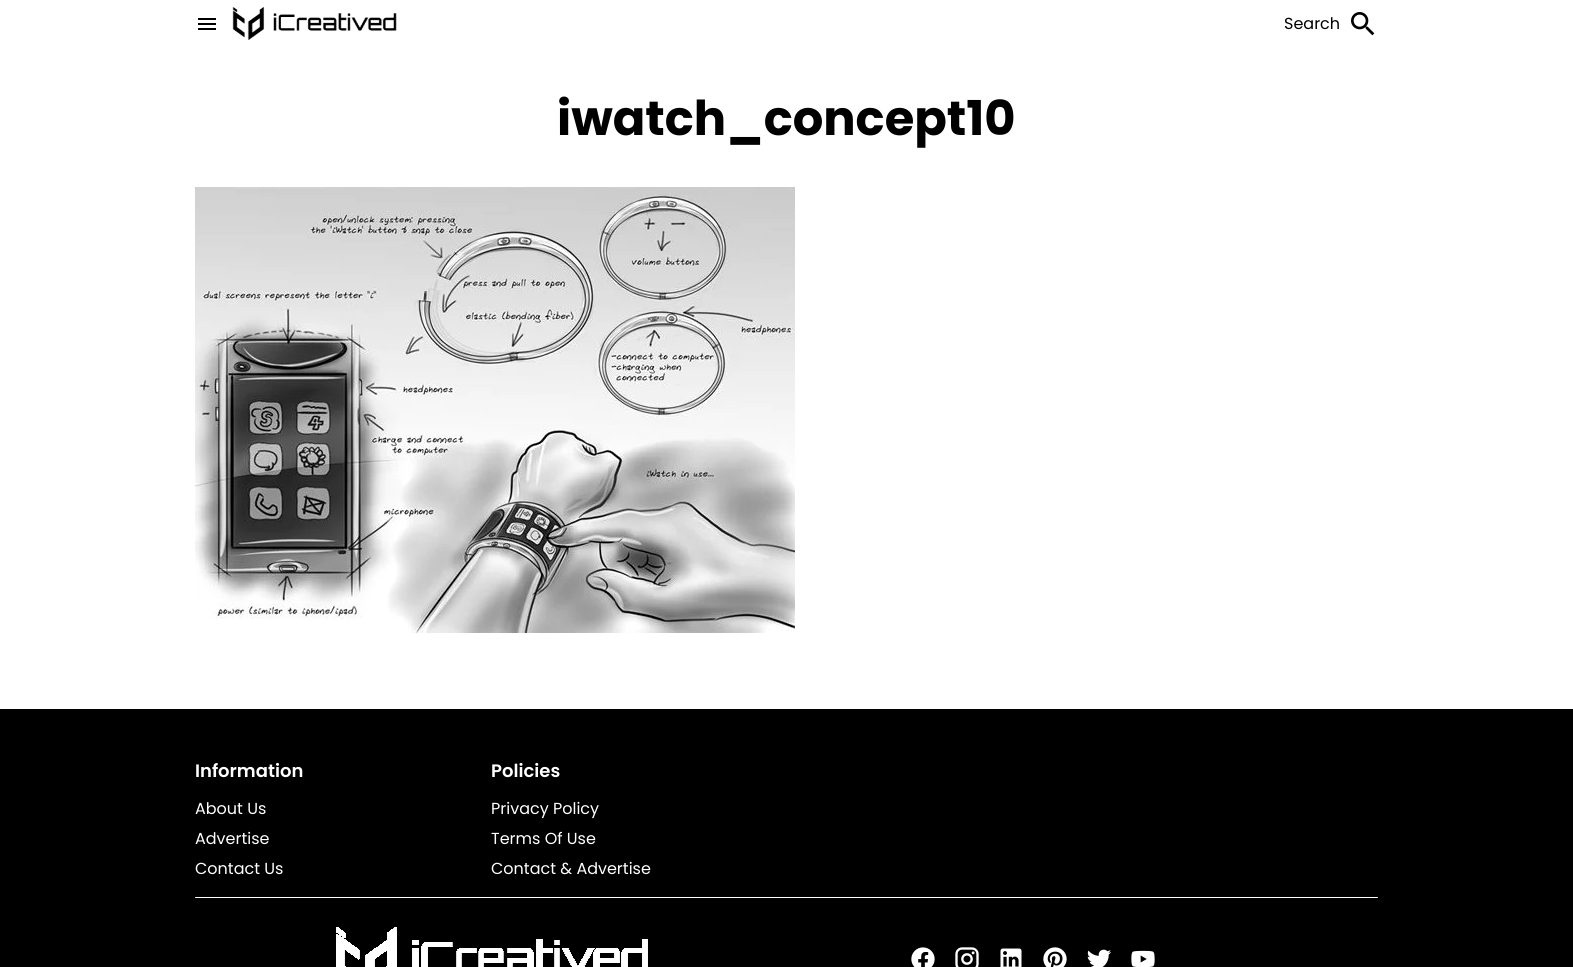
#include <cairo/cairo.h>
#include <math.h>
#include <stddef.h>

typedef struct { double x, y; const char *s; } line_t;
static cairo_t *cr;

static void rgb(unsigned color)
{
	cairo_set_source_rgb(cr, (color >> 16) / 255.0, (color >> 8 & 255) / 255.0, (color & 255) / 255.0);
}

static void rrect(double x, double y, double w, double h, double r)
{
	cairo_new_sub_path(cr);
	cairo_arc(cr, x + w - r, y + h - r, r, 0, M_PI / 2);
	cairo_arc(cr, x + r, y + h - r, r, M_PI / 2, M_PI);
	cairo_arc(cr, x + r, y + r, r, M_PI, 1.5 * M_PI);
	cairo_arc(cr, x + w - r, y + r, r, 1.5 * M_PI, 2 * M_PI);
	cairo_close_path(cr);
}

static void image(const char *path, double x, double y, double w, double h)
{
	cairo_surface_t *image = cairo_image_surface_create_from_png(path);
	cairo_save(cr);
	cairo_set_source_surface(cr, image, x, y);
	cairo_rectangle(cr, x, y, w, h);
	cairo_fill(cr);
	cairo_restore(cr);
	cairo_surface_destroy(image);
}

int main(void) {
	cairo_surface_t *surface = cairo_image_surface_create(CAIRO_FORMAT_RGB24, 1573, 967);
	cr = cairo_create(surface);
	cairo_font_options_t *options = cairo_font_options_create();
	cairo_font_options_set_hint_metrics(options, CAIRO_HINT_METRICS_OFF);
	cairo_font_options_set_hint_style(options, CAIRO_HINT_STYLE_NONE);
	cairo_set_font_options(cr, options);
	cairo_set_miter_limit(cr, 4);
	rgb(0xffffff);
	cairo_paint(cr);
	image("img/1.png", 198, 18, 18, 12);
	image("img/2.png", 232, 7, 165, 33);
	image("img/3.png", 1351, 12, 24, 24);
	image("img/4.png", 195, 187, 600, 446);
	rgb(0x000000);
	cairo_rectangle(cr, 0, 709, 1573, 258);
	cairo_fill(cr);
	rgb(0xffffff);
	rrect(195, 897, 1183, 1, 0.5);
	cairo_fill(cr);
	image("img/5.png", 336, 927, 312, 40);
	image("img/6.png", 911, 947, 24, 20);
	image("img/7.png", 955, 947, 24, 20);
	image("img/8.png", 1000, 948, 22, 19);
	image("img/9.png", 1043, 947, 24, 20);
	image("img/10.png", 1087, 949, 24, 18);
	image("img/11.png", 1131, 950, 24, 17);
	cairo_select_font_face(cr, "Poppins", CAIRO_FONT_SLANT_NORMAL, CAIRO_FONT_WEIGHT_NORMAL);
	cairo_set_font_size(cr, 16);
	rgb(0x000000);
	cairo_move_to(cr, 1284, 29);
	cairo_show_text(cr, "Search");
	cairo_select_font_face(cr, "Poppins", CAIRO_FONT_SLANT_NORMAL, CAIRO_FONT_WEIGHT_BOLD);
	cairo_set_font_size(cr, 48);
	cairo_move_to(cr, 557, 135);
	cairo_show_text(cr, "iwatch_concept10");
	cairo_select_font_face(cr, "Poppins SemiBold", CAIRO_FONT_SLANT_NORMAL, CAIRO_FONT_WEIGHT_NORMAL);
	cairo_set_font_size(cr, 18);
	rgb(0xffffff);
	cairo_move_to(cr, 195, 777);
	cairo_show_text(cr, "Information");
	cairo_select_font_face(cr, "Poppins", CAIRO_FONT_SLANT_NORMAL, CAIRO_FONT_WEIGHT_NORMAL);
	cairo_set_font_size(cr, 16);
	{
		static const line_t items[] = {
			{195, 814, "About Us"},
			{195, 844, "Advertise"},
			{195, 874, "Contact Us"},
		};
		for (size_t i = 0; i < sizeof items / sizeof *items; i++) {
			cairo_move_to(cr, items[i].x, items[i].y);
			cairo_show_text(cr, items[i].s);
		}
	}
	cairo_select_font_face(cr, "Poppins SemiBold", CAIRO_FONT_SLANT_NORMAL, CAIRO_FONT_WEIGHT_NORMAL);
	cairo_set_font_size(cr, 18);
	cairo_move_to(cr, 491, 777);
	cairo_show_text(cr, "Policies");
	cairo_select_font_face(cr, "Poppins", CAIRO_FONT_SLANT_NORMAL, CAIRO_FONT_WEIGHT_NORMAL);
	cairo_set_font_size(cr, 16);
	{
		static const line_t items[] = {
			{491, 814, "Privacy Policy"},
			{491, 844, "Terms Of Use"},
			{491, 874, "Contact & Advertise"},
		};
		for (size_t i = 0; i < sizeof items / sizeof *items; i++) {
			cairo_move_to(cr, items[i].x, items[i].y);
			cairo_show_text(cr, items[i].s);
		}
	}
	cairo_surface_write_to_png(surface, "page.png");
	cairo_font_options_destroy(options);
	cairo_destroy(cr);
	cairo_surface_destroy(surface);
	return 0;
}
